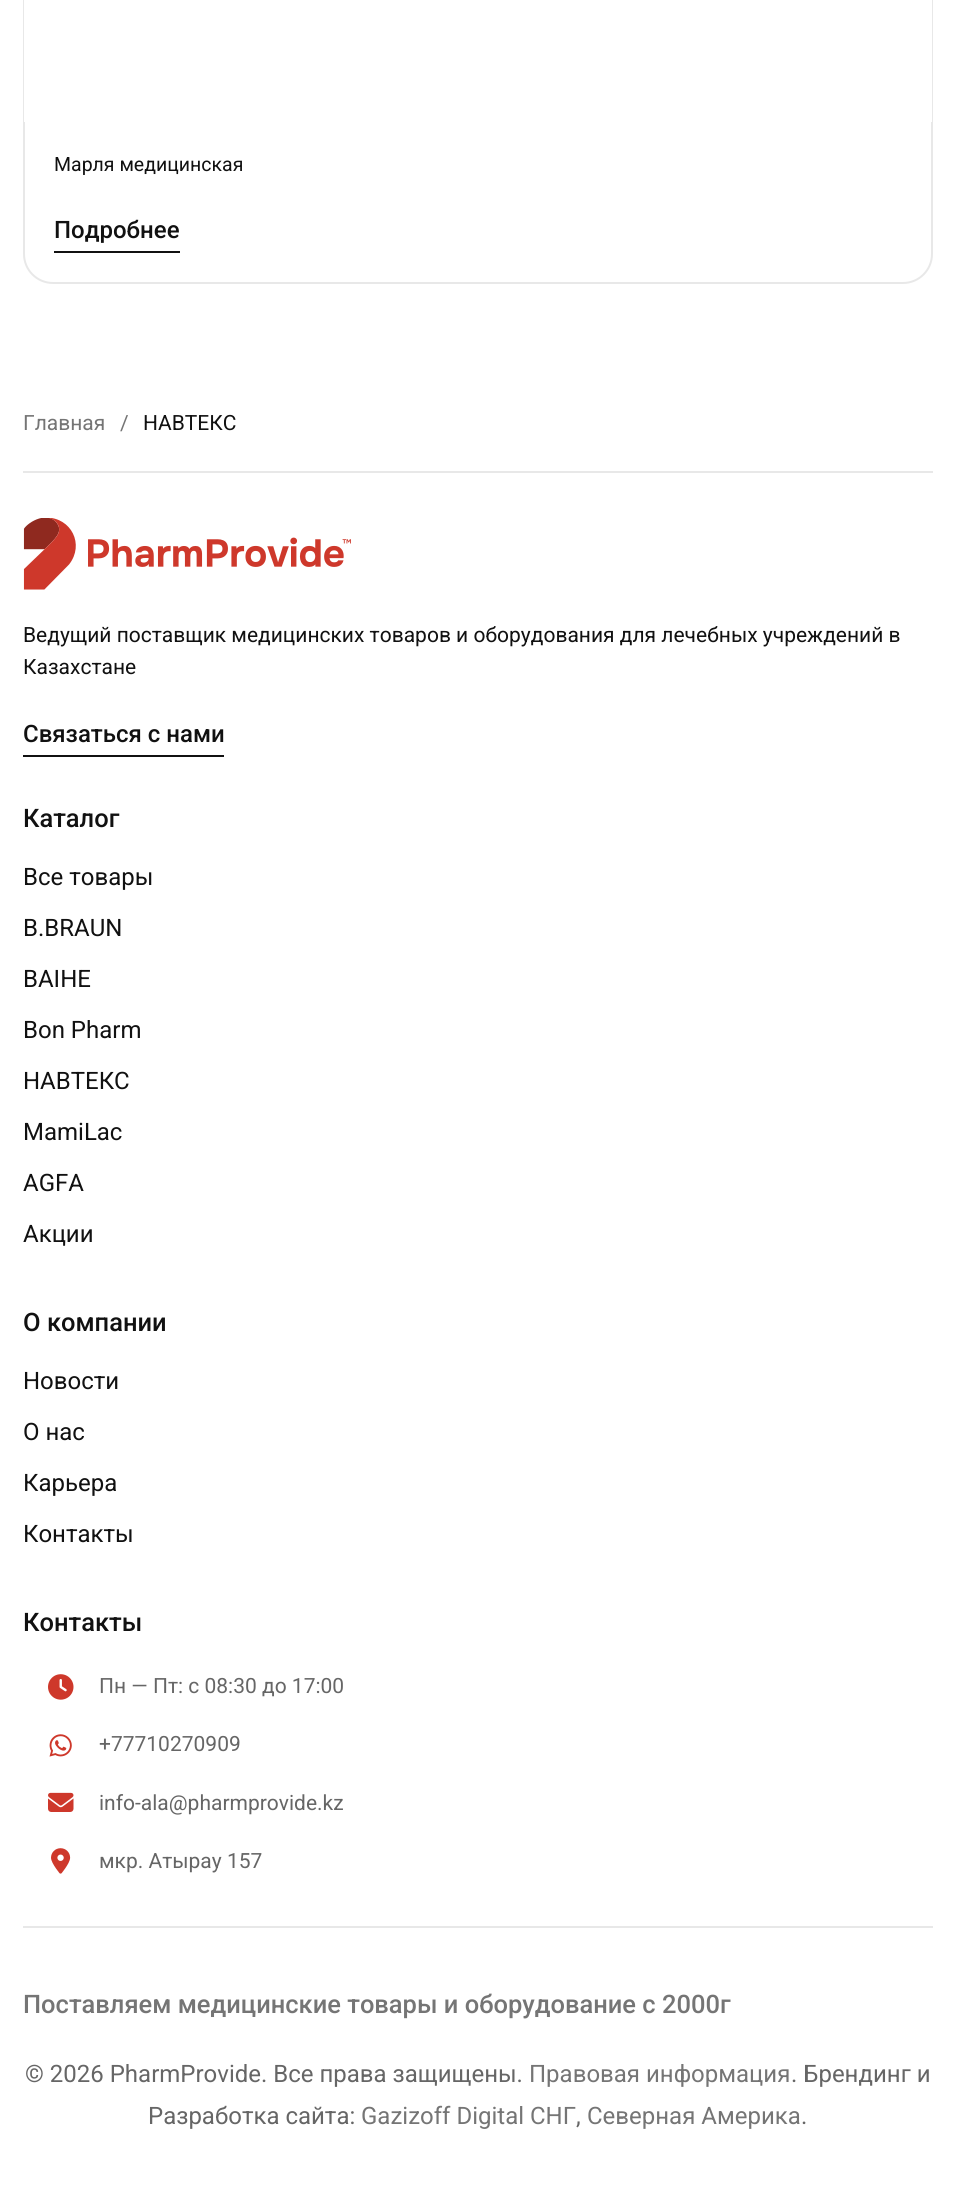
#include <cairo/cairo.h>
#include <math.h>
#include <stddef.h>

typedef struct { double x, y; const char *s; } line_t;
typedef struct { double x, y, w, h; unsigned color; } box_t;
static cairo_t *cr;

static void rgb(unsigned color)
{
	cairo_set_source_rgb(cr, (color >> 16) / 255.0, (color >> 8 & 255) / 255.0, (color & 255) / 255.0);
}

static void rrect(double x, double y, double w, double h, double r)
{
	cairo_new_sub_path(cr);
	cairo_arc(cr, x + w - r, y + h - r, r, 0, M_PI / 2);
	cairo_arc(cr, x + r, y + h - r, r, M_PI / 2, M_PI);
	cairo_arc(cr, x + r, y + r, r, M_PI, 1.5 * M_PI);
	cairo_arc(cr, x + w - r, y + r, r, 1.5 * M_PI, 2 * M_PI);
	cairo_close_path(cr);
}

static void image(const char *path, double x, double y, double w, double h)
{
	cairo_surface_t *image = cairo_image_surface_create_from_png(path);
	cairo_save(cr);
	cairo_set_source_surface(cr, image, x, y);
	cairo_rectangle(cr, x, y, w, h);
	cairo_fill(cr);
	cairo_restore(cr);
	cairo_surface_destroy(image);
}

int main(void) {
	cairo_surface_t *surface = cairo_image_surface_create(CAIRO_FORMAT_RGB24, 955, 2197);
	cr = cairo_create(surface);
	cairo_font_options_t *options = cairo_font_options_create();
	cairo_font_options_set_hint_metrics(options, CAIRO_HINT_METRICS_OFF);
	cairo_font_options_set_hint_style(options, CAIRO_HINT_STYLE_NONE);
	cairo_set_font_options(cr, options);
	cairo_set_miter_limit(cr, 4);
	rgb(0xffffff);
	cairo_paint(cr);
	rrect(24, -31, 908, 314, 29);
	rgb(0xe8e8e8);
	cairo_stroke(cr);
	{
		static const box_t items[] = {
			{24, 0, 908, 122, 0xffffff},
			{54, 251, 126, 2, 0x111111},
			{23, 471, 910, 2, 0xe8e8e8},
		};
		for (size_t i = 0; i < sizeof items / sizeof *items; i++) {
			rgb(items[i].color);
			cairo_rectangle(cr, items[i].x, items[i].y, items[i].w, items[i].h);
			cairo_fill(cr);
		}
	}
	image("img/1.png", 23, 518, 328, 72);
	rgb(0x111111);
	cairo_rectangle(cr, 23, 755, 201, 2);
	cairo_fill(cr);
	image("img/2.png", 48, 1674, 26, 26);
	image("img/3.png", 49, 1734, 23, 23);
	image("img/4.png", 48, 1792, 26, 20);
	image("img/5.png", 51, 1848, 20, 26);
	rgb(0xe8e8e8);
	cairo_rectangle(cr, 23, 1926, 910, 2);
	cairo_fill(cr);
	cairo_select_font_face(cr, "Roboto", CAIRO_FONT_SLANT_NORMAL, CAIRO_FONT_WEIGHT_NORMAL);
	cairo_set_font_size(cr, 19.5);
	rgb(0x111111);
	cairo_move_to(cr, 54, 171);
	cairo_show_text(cr, "Марля медицинская");
	cairo_select_font_face(cr, "Roboto Medium", CAIRO_FONT_SLANT_NORMAL, CAIRO_FONT_WEIGHT_NORMAL);
	cairo_set_font_size(cr, 24);
	cairo_move_to(cr, 54, 238);
	cairo_show_text(cr, "Подробнее");
	cairo_select_font_face(cr, "Roboto", CAIRO_FONT_SLANT_NORMAL, CAIRO_FONT_WEIGHT_NORMAL);
	cairo_set_font_size(cr, 21);
	rgb(0x757575);
	cairo_move_to(cr, 23, 430);
	cairo_show_text(cr, "Главная");
	cairo_move_to(cr, 120, 430);
	cairo_show_text(cr, "/");
	rgb(0x111111);
	{
		static const line_t items[] = {
			{143, 430, "НАВТЕКС"},
			{23, 642, "Ведущий поставщик медицинских товаров и оборудования для лечебных учреждений в"},
			{23, 674, "Казахстане"},
		};
		for (size_t i = 0; i < sizeof items / sizeof *items; i++) {
			cairo_move_to(cr, items[i].x, items[i].y);
			cairo_show_text(cr, items[i].s);
		}
	}
	cairo_select_font_face(cr, "Roboto Medium", CAIRO_FONT_SLANT_NORMAL, CAIRO_FONT_WEIGHT_NORMAL);
	cairo_set_font_size(cr, 24);
	cairo_move_to(cr, 23, 742);
	cairo_show_text(cr, "Связаться с нами");
	cairo_set_font_size(cr, 25.5);
	cairo_move_to(cr, 23, 827);
	cairo_show_text(cr, "Каталог");
	cairo_select_font_face(cr, "Roboto", CAIRO_FONT_SLANT_NORMAL, CAIRO_FONT_WEIGHT_NORMAL);
	cairo_set_font_size(cr, 24);
	{
		static const line_t items[] = {
			{23, 885, "Все товары"},
			{23, 936, "B.BRAUN"},
			{23, 987, "BAIHE"},
			{23, 1038, "Bon Pharm"},
			{23, 1089, "НАВТЕКС"},
			{23, 1140, "MamiLac"},
			{23, 1191, "AGFA"},
			{23, 1242, "Акции"},
		};
		for (size_t i = 0; i < sizeof items / sizeof *items; i++) {
			cairo_move_to(cr, items[i].x, items[i].y);
			cairo_show_text(cr, items[i].s);
		}
	}
	cairo_select_font_face(cr, "Roboto Medium", CAIRO_FONT_SLANT_NORMAL, CAIRO_FONT_WEIGHT_NORMAL);
	cairo_set_font_size(cr, 25.5);
	cairo_move_to(cr, 23, 1331);
	cairo_show_text(cr, "О компании");
	cairo_select_font_face(cr, "Roboto", CAIRO_FONT_SLANT_NORMAL, CAIRO_FONT_WEIGHT_NORMAL);
	cairo_set_font_size(cr, 24);
	{
		static const line_t items[] = {
			{23, 1389, "Новости"},
			{23, 1440, "О нас"},
			{23, 1491, "Карьера"},
			{23, 1542, "Контакты"},
		};
		for (size_t i = 0; i < sizeof items / sizeof *items; i++) {
			cairo_move_to(cr, items[i].x, items[i].y);
			cairo_show_text(cr, items[i].s);
		}
	}
	cairo_select_font_face(cr, "Roboto Medium", CAIRO_FONT_SLANT_NORMAL, CAIRO_FONT_WEIGHT_NORMAL);
	cairo_set_font_size(cr, 25.5);
	cairo_move_to(cr, 23, 1631);
	cairo_show_text(cr, "Контакты");
	cairo_select_font_face(cr, "Roboto", CAIRO_FONT_SLANT_NORMAL, CAIRO_FONT_WEIGHT_NORMAL);
	cairo_set_font_size(cr, 21);
	rgb(0x666666);
	{
		static const line_t items[] = {
			{99, 1693, "Пн — Пт: с 08:30 до 17:00"},
			{99, 1751, "+77710270909"},
			{99, 1810, "info-ala@pharmprovide.kz"},
			{99, 1868, "мкр. Атырау 157"},
		};
		for (size_t i = 0; i < sizeof items / sizeof *items; i++) {
			cairo_move_to(cr, items[i].x, items[i].y);
			cairo_show_text(cr, items[i].s);
		}
	}
	cairo_select_font_face(cr, "Roboto Medium", CAIRO_FONT_SLANT_NORMAL, CAIRO_FONT_WEIGHT_NORMAL);
	cairo_set_font_size(cr, 25.5);
	rgb(0x757575);
	cairo_move_to(cr, 23, 2013);
	cairo_show_text(cr, "Поставляем медицинские товары и оборудование с 2000г");
	cairo_select_font_face(cr, "Roboto", CAIRO_FONT_SLANT_NORMAL, CAIRO_FONT_WEIGHT_NORMAL);
	cairo_set_font_size(cr, 24);
	rgb(0x666666);
	cairo_move_to(cr, 25, 2082);
	cairo_show_text(cr, "© 2026 PharmProvide. Все права защищены.");
	rgb(0x757575);
	cairo_move_to(cr, 529, 2082);
	cairo_show_text(cr, "Правовая информация");
	rgb(0x666666);
	cairo_move_to(cr, 791, 2082);
	cairo_show_text(cr, ". Брендинг и");
	cairo_move_to(cr, 148, 2124);
	cairo_show_text(cr, "Разработка сайта:");
	rgb(0x757575);
	cairo_move_to(cr, 361, 2124);
	cairo_show_text(cr, "Gazizoff Digital СНГ");
	rgb(0x666666);
	cairo_move_to(cr, 576, 2124);
	cairo_show_text(cr, ",");
	rgb(0x757575);
	cairo_move_to(cr, 587, 2124);
	cairo_show_text(cr, "Северная Америка");
	rgb(0x666666);
	cairo_move_to(cr, 801, 2124);
	cairo_show_text(cr, ".");
	cairo_surface_write_to_png(surface, "page.png");
	cairo_font_options_destroy(options);
	cairo_destroy(cr);
	cairo_surface_destroy(surface);
	return 0;
}
